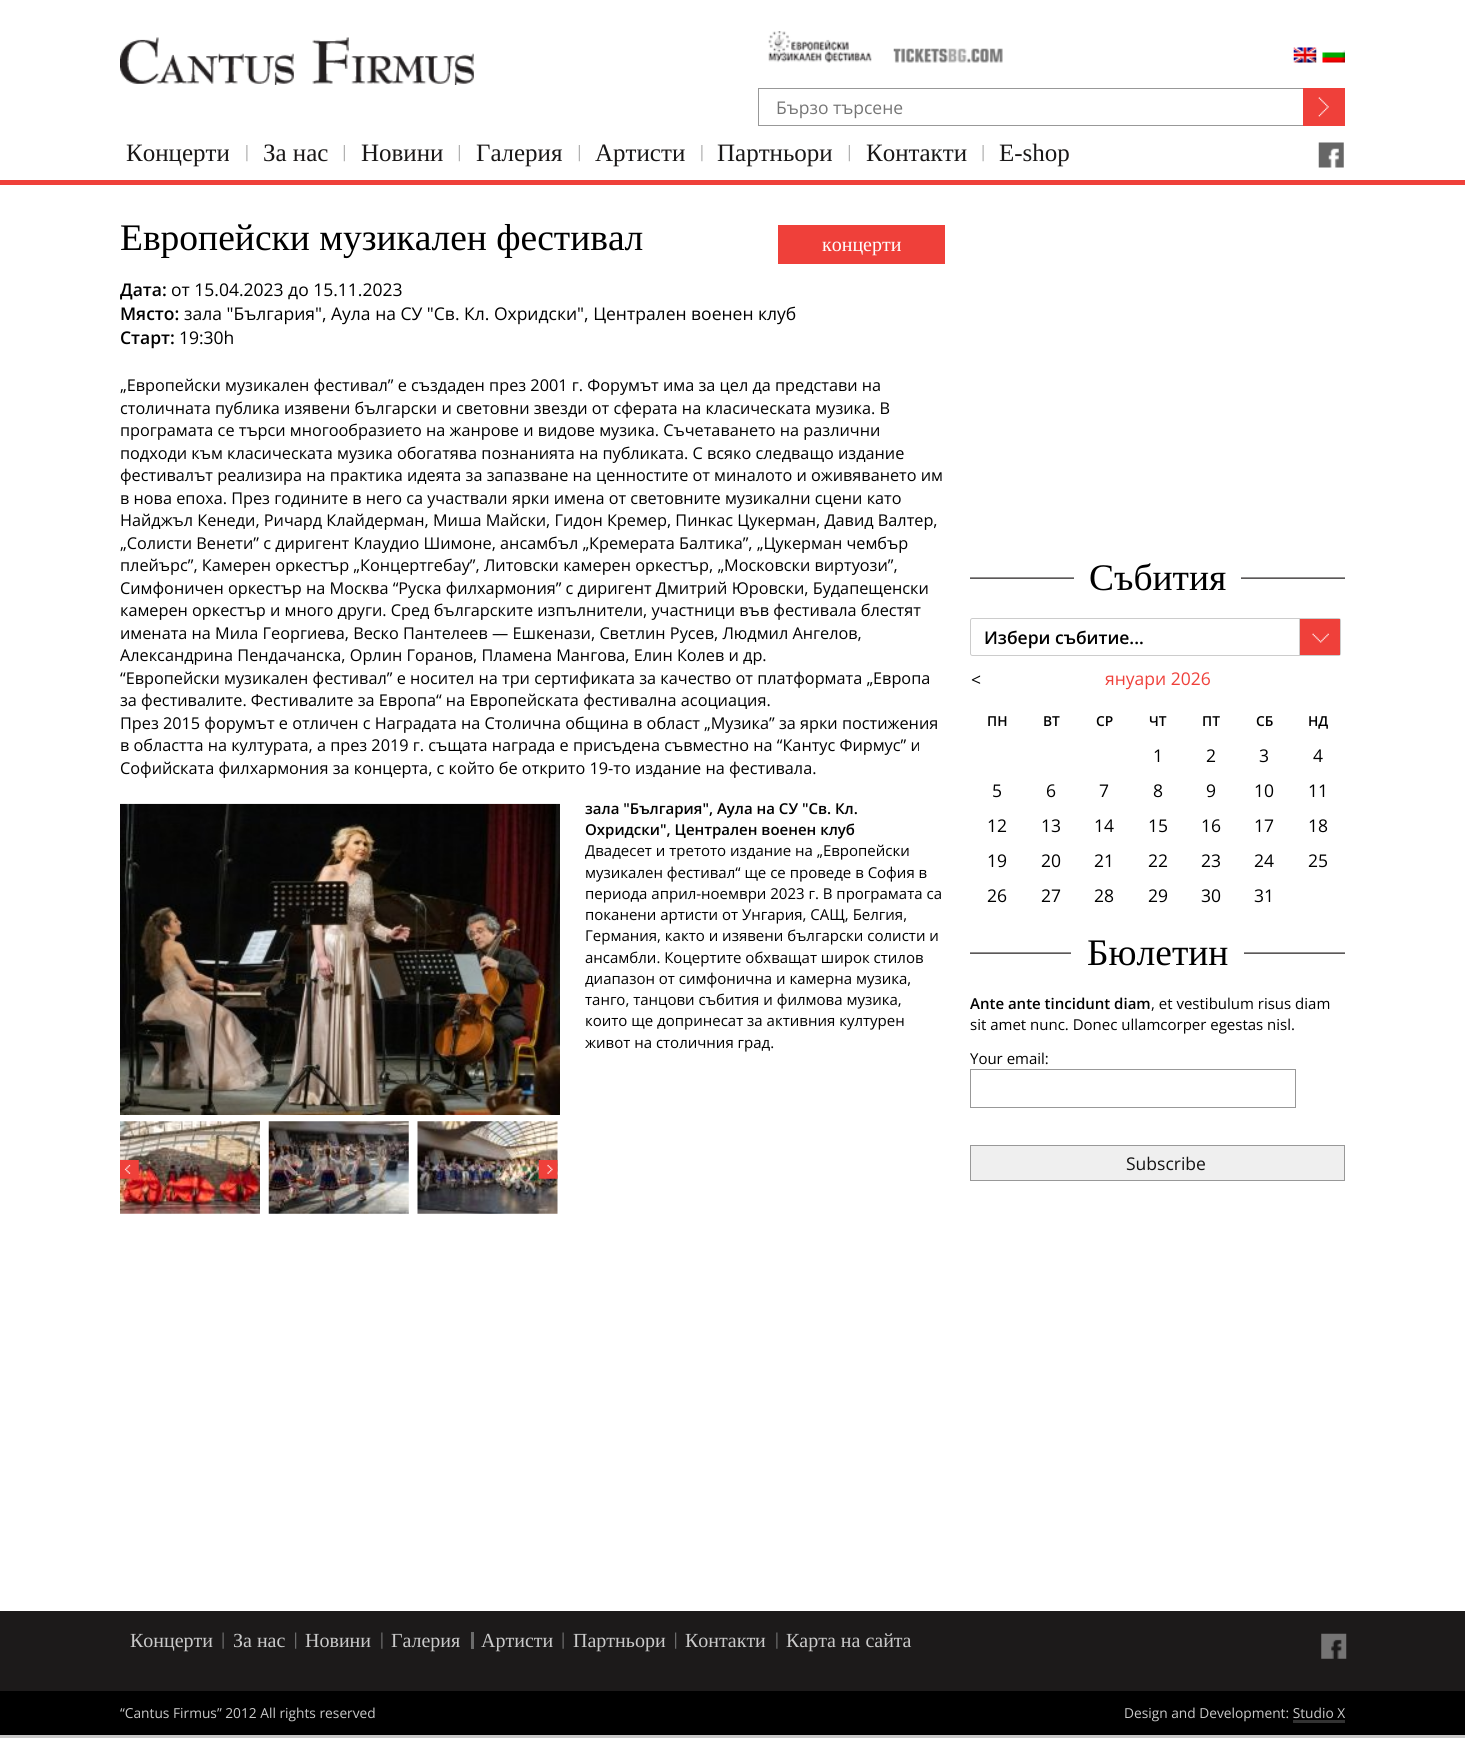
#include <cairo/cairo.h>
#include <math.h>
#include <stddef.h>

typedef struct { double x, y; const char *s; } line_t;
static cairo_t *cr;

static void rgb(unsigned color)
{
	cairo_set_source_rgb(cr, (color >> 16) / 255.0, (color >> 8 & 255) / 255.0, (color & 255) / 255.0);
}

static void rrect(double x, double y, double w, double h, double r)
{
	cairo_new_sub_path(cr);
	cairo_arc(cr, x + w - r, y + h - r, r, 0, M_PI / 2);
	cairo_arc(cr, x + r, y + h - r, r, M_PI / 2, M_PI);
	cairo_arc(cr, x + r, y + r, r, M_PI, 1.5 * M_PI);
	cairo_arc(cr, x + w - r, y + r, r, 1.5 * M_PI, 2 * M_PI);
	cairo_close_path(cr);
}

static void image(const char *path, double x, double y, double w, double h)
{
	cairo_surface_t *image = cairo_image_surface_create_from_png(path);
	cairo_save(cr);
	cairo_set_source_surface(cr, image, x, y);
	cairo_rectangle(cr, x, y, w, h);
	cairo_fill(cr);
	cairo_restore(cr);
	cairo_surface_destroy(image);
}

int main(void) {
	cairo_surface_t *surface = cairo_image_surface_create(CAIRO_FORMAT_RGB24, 1465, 1738);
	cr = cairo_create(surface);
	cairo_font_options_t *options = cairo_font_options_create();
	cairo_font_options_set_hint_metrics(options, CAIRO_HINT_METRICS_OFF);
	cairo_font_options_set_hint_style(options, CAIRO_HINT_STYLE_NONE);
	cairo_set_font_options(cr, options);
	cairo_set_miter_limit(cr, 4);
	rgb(0xffffff);
	cairo_paint(cr);
	rgb(0xef403a);
	cairo_rectangle(cr, 0, 180, 1465, 5);
	cairo_fill(cr);
	image("img/1.png", 120, 37, 354, 48);
	image("img/2.png", 768, 31, 104, 32);
	image("img/3.png", 893, 48, 110, 15);
	image("img/4.png", 1293, 47, 24, 16);
	image("img/5.png", 1322, 50, 23, 13);
	cairo_rectangle(cr, 758.5, 88.5, 545, 37);
	rgb(0x989898);
	cairo_set_line_width(cr, 1);
	cairo_stroke(cr);
	rgb(0xef403a);
	cairo_rectangle(cr, 1303, 88, 42, 38);
	cairo_fill(cr);
	image("img/6.png", 1318, 97, 11, 20);
	image("img/7.png", 246, 145, 2, 17);
	image("img/8.png", 343, 145, 2, 17);
	image("img/8.png", 458, 145, 2, 17);
	image("img/8.png", 578, 145, 2, 17);
	image("img/7.png", 701, 145, 2, 17);
	image("img/8.png", 848, 145, 2, 17);
	image("img/9.png", 982, 145, 2, 17);
	image("img/10.png", 1318, 142, 26, 26);
	cairo_rectangle(cr, 778, 225, 167, 39);
	cairo_fill(cr);
	image("img/11.png", 120, 803, 440, 312);
	image("img/12.png", 120, 1121, 140, 93);
	image("img/13.png", 268, 1121, 141, 93);
	image("img/14.png", 417, 1121, 141, 93);
	image("img/15.png", 120, 1160, 19, 19);
	image("img/16.png", 538, 1160, 20, 19);
	image("img/17.png", 970, 577, 375, 2);
	rgb(0xffffff);
	cairo_rectangle(cr, 1074, 577, 167, 2);
	cairo_fill(cr);
	rrect(970.5, 618.5, 370, 37, 2);
	rgb(0xcccccc);
	cairo_stroke(cr);
	rgb(0xef403a);
	cairo_rectangle(cr, 1300, 619, 40, 36);
	cairo_fill(cr);
	image("img/18.png", 1312, 633, 17, 10);
	rgb(0xcccccc);
	cairo_rectangle(cr, 1299, 619, 1, 36);
	cairo_fill(cr);
	image("img/17.png", 970, 952, 375, 2);
	rgb(0xffffff);
	cairo_rectangle(cr, 1071, 952, 173, 2);
	cairo_fill(cr);
	cairo_rectangle(cr, 970.5, 1069.5, 325, 38);
	rgb(0x989898);
	cairo_stroke(cr);
	rgb(0xefefef);
	cairo_rectangle(cr, 970.5, 1145.5, 374, 35);
	cairo_fill_preserve(cr);
	rgb(0x989898);
	cairo_stroke(cr);
	rgb(0xc8c7c7);
	cairo_rectangle(cr, 0, 1735, 1465, 3);
	cairo_fill(cr);
	rgb(0x1c1a1a);
	cairo_rectangle(cr, 0, 1611, 1465, 80);
	cairo_fill(cr);
	image("img/19.png", 222, 1632, 2, 17);
	image("img/20.png", 295, 1632, 2, 17);
	image("img/21.png", 381, 1632, 2, 17);
	rgb(0x6b6b6b);
	cairo_rectangle(cr, 471, 1632, 3, 17);
	cairo_fill(cr);
	image("img/19.png", 562, 1632, 2, 17);
	image("img/20.png", 675, 1632, 2, 17);
	image("img/21.png", 776, 1632, 2, 17);
	image("img/22.png", 1321, 1633, 26, 26);
	rgb(0x000000);
	cairo_rectangle(cr, 0, 1691, 1465, 44);
	cairo_fill(cr);
	cairo_select_font_face(cr, "Open Sans", CAIRO_FONT_SLANT_NORMAL, CAIRO_FONT_WEIGHT_NORMAL);
	cairo_set_font_size(cr, 17.5);
	rgb(0x757575);
	cairo_move_to(cr, 776, 114);
	cairo_show_text(cr, "Бързо търсене");
	cairo_select_font_face(cr, "Liberation Serif", CAIRO_FONT_SLANT_NORMAL, CAIRO_FONT_WEIGHT_NORMAL);
	cairo_set_font_size(cr, 25);
	rgb(0x1a1818);
	{
		static const line_t items[] = {
			{126, 161, "Концерти"},
			{263, 161, "За нас"},
			{361, 161, "Новини"},
			{476, 161, "Галерия"},
			{595, 161, "Артисти"},
			{717, 161, "Партньори"},
			{866, 161, "Контакти"},
			{999, 161, "E-shop"},
		};
		for (size_t i = 0; i < sizeof items / sizeof *items; i++) {
			cairo_move_to(cr, items[i].x, items[i].y);
			cairo_show_text(cr, items[i].s);
		}
	}
	cairo_set_font_size(cr, 37.5);
	rgb(0x000000);
	cairo_move_to(cr, 120, 250);
	cairo_show_text(cr, "Европейски музикален фестивал");
	cairo_set_font_size(cr, 20);
	rgb(0xfefefe);
	cairo_move_to(cr, 822, 251);
	cairo_show_text(cr, "концерти");
	cairo_select_font_face(cr, "Open Sans SemiBold", CAIRO_FONT_SLANT_NORMAL, CAIRO_FONT_WEIGHT_NORMAL);
	cairo_set_font_size(cr, 17.5);
	rgb(0x000000);
	cairo_move_to(cr, 120, 296);
	cairo_show_text(cr, "Дата:");
	cairo_select_font_face(cr, "Open Sans", CAIRO_FONT_SLANT_NORMAL, CAIRO_FONT_WEIGHT_NORMAL);
	cairo_move_to(cr, 171, 296);
	cairo_show_text(cr, "от 15.04.2023 до 15.11.2023");
	cairo_select_font_face(cr, "Open Sans SemiBold", CAIRO_FONT_SLANT_NORMAL, CAIRO_FONT_WEIGHT_NORMAL);
	cairo_move_to(cr, 120, 320);
	cairo_show_text(cr, "Място:");
	cairo_select_font_face(cr, "Open Sans", CAIRO_FONT_SLANT_NORMAL, CAIRO_FONT_WEIGHT_NORMAL);
	cairo_move_to(cr, 184, 320);
	cairo_show_text(cr, "зала \"България\", Аула на СУ \"Св. Кл. Охридски\", Централен военен клуб");
	cairo_select_font_face(cr, "Open Sans SemiBold", CAIRO_FONT_SLANT_NORMAL, CAIRO_FONT_WEIGHT_NORMAL);
	cairo_move_to(cr, 120, 344);
	cairo_show_text(cr, "Старт:");
	cairo_select_font_face(cr, "Open Sans", CAIRO_FONT_SLANT_NORMAL, CAIRO_FONT_WEIGHT_NORMAL);
	cairo_move_to(cr, 179, 344);
	cairo_show_text(cr, "19:30h");
	cairo_set_font_size(cr, 16.25);
	{
		static const line_t items[] = {
			{120, 391, "„Европейски музикален фестивал” e създаден през 2001 г. Форумът има за цел да представи на"},
			{120, 414, "столичната публика изявени български и световни звезди от сферата на класическата музика. В"},
			{120, 436, "програмата се търси многообразието на жанрове и видове музика. Съчетаването на различни"},
			{120, 459, "подходи към класическата музика обогатява познанията на публиката. С всяко следващо издание"},
			{120, 481, "фестивалът реализира на практика идеята за запазване на ценностите от миналото и оживяването им"},
			{120, 504, "в нова епоха. През годините в него са участвали ярки имена от световните музикални сцени като"},
			{120, 526, "Найджъл Кенеди, Ричард Клайдерман, Миша Майски, Гидон Кремер, Пинкас Цукерман, Давид Валтер,"},
			{120, 549, "„Солисти Венети” с диригент Клаудио Шимоне, ансамбъл „Кремерата Балтика”, „Цукерман чембър"},
			{120, 571, "плейърс”, Камерен оркестър „Концертгебау”, Литовски камерен оркестър, „Московски виртуози”,"},
			{120, 594, "Симфоничен оркестър на Москва “Руска филхармония” с диригент Дмитрий Юровски, Будапещенски"},
			{120, 616, "камерен оркестър и много други. Сред българските изпълнители, участници във фестивала блестят"},
			{120, 639, "имената на Мила Георгиева, Веско Пантелеев — Ешкенази, Светлин Русев, Людмил Ангелов,"},
			{120, 661, "Александрина Пендачанска, Орлин Горанов, Пламена Мангова, Елин Колев и др."},
			{120, 684, "“Европейски музикален фестивал” е носител на три сертификата за качество от платформата „Европа"},
			{120, 706, "за фестивалите. Фестивалите за Европа“ на Европейската фестивална асоциация."},
			{120, 729, "През 2015 форумът е отличен с Наградата на Столична община в област „Музика” за ярки постижения"},
			{120, 751, "в областта на културата, а през 2019 г. същата награда е присъдена съвместно на “Кантус Фирмус” и"},
			{120, 774, "Софийската филхармония за концерта, с който бе открито 19-то издание на фестивала."},
		};
		for (size_t i = 0; i < sizeof items / sizeof *items; i++) {
			cairo_move_to(cr, items[i].x, items[i].y);
			cairo_show_text(cr, items[i].s);
		}
	}
	cairo_select_font_face(cr, "Open Sans SemiBold", CAIRO_FONT_SLANT_NORMAL, CAIRO_FONT_WEIGHT_NORMAL);
	cairo_set_font_size(cr, 15);
	cairo_move_to(cr, 585, 814);
	cairo_show_text(cr, "зала \"България\", Аула на СУ \"Св. Кл.");
	cairo_move_to(cr, 585, 835);
	cairo_show_text(cr, "Охридски\", Централен военен клуб");
	cairo_select_font_face(cr, "Open Sans", CAIRO_FONT_SLANT_NORMAL, CAIRO_FONT_WEIGHT_NORMAL);
	{
		static const line_t items[] = {
			{585, 856, "Двадесет и третото издание на „Европейски"},
			{585, 878, "музикален фестивал“ ще се проведе в София в"},
			{585, 899, "периода април-ноември 2023 г. В програмата са"},
			{585, 920, "поканени артисти от Унгария, САЩ, Белгия,"},
			{585, 941, "Германия, както и изявени български солисти и"},
			{585, 963, "ансамбли. Коцертите обхващат широк стилов"},
			{585, 984, "диапазон от симфонична и камерна музика,"},
			{585, 1005, "танго, танцови събития и филмова музика,"},
			{585, 1026, "които ще допринесат за активния културен"},
			{585, 1048, "живот на столичния град."},
		};
		for (size_t i = 0; i < sizeof items / sizeof *items; i++) {
			cairo_move_to(cr, items[i].x, items[i].y);
			cairo_show_text(cr, items[i].s);
		}
	}
	cairo_select_font_face(cr, "Liberation Serif", CAIRO_FONT_SLANT_NORMAL, CAIRO_FONT_WEIGHT_NORMAL);
	cairo_set_font_size(cr, 37.5);
	cairo_move_to(cr, 1089, 590);
	cairo_show_text(cr, "Събития");
	cairo_select_font_face(cr, "Open Sans SemiBold", CAIRO_FONT_SLANT_NORMAL, CAIRO_FONT_WEIGHT_NORMAL);
	cairo_set_font_size(cr, 17.5);
	cairo_move_to(cr, 984, 644);
	cairo_show_text(cr, "Избери събитие...");
	cairo_select_font_face(cr, "Open Sans", CAIRO_FONT_SLANT_NORMAL, CAIRO_FONT_WEIGHT_NORMAL);
	cairo_move_to(cr, 971, 686);
	cairo_show_text(cr, "<");
	rgb(0xef403a);
	cairo_move_to(cr, 1105, 685);
	cairo_show_text(cr, "януари 2026");
	cairo_select_font_face(cr, "Open Sans SemiBold", CAIRO_FONT_SLANT_NORMAL, CAIRO_FONT_WEIGHT_NORMAL);
	cairo_set_font_size(cr, 13.75);
	rgb(0x000000);
	{
		static const line_t items[] = {
			{987, 726, "ПН"},
			{1043, 726, "ВТ"},
			{1096, 726, "СР"},
			{1149, 726, "ЧТ"},
			{1202, 726, "ПТ"},
			{1256, 726, "СБ"},
			{1308, 726, "НД"},
		};
		for (size_t i = 0; i < sizeof items / sizeof *items; i++) {
			cairo_move_to(cr, items[i].x, items[i].y);
			cairo_show_text(cr, items[i].s);
		}
	}
	cairo_select_font_face(cr, "Open Sans", CAIRO_FONT_SLANT_NORMAL, CAIRO_FONT_WEIGHT_NORMAL);
	cairo_set_font_size(cr, 17.5);
	{
		static const line_t items[] = {
			{1153, 762, "1"},
			{1206, 762, "2"},
			{1259, 762, "3"},
			{1313, 762, "4"},
			{992, 797, "5"},
			{1046, 797, "6"},
			{1099, 797, "7"},
			{1153, 797, "8"},
			{1206, 797, "9"},
			{1254, 797, "10"},
			{1308, 797, "11"},
			{987, 832, "12"},
			{1041, 832, "13"},
			{1094, 832, "14"},
			{1148, 832, "15"},
			{1201, 832, "16"},
			{1254, 832, "17"},
			{1308, 832, "18"},
			{987, 867, "19"},
			{1041, 867, "20"},
			{1094, 867, "21"},
			{1148, 867, "22"},
			{1201, 867, "23"},
			{1254, 867, "24"},
			{1308, 867, "25"},
			{987, 902, "26"},
			{1041, 902, "27"},
			{1094, 902, "28"},
			{1148, 902, "29"},
			{1201, 902, "30"},
			{1254, 902, "31"},
		};
		for (size_t i = 0; i < sizeof items / sizeof *items; i++) {
			cairo_move_to(cr, items[i].x, items[i].y);
			cairo_show_text(cr, items[i].s);
		}
	}
	cairo_select_font_face(cr, "Liberation Serif", CAIRO_FONT_SLANT_NORMAL, CAIRO_FONT_WEIGHT_NORMAL);
	cairo_set_font_size(cr, 37.5);
	cairo_move_to(cr, 1087, 965);
	cairo_show_text(cr, "Бюлетин");
	cairo_select_font_face(cr, "Open Sans SemiBold", CAIRO_FONT_SLANT_NORMAL, CAIRO_FONT_WEIGHT_NORMAL);
	cairo_set_font_size(cr, 15);
	cairo_move_to(cr, 970, 1009);
	cairo_show_text(cr, "Ante ante tincidunt diam");
	cairo_select_font_face(cr, "Open Sans", CAIRO_FONT_SLANT_NORMAL, CAIRO_FONT_WEIGHT_NORMAL);
	{
		static const line_t items[] = {
			{1151, 1009, ", et vestibulum risus diam"},
			{970, 1030, "sit amet nunc. Donec ullamcorper egestas nisl."},
			{970, 1064, "Your email:"},
		};
		for (size_t i = 0; i < sizeof items / sizeof *items; i++) {
			cairo_move_to(cr, items[i].x, items[i].y);
			cairo_show_text(cr, items[i].s);
		}
	}
	cairo_set_font_size(cr, 17.5);
	rgb(0x131212);
	cairo_move_to(cr, 1126, 1170);
	cairo_show_text(cr, "Subscribe");
	cairo_select_font_face(cr, "Liberation Serif", CAIRO_FONT_SLANT_NORMAL, CAIRO_FONT_WEIGHT_NORMAL);
	cairo_set_font_size(cr, 20);
	rgb(0xcacaca);
	{
		static const line_t items[] = {
			{130, 1647, "Концерти"},
			{233, 1647, "За нас"},
			{305, 1647, "Новини"},
			{391, 1647, "Галерия"},
			{481, 1647, "Артисти"},
			{573, 1647, "Партньори"},
			{685, 1647, "Контакти"},
			{786, 1647, "Карта на сайта"},
		};
		for (size_t i = 0; i < sizeof items / sizeof *items; i++) {
			cairo_move_to(cr, items[i].x, items[i].y);
			cairo_show_text(cr, items[i].s);
		}
	}
	cairo_select_font_face(cr, "Open Sans", CAIRO_FONT_SLANT_NORMAL, CAIRO_FONT_WEIGHT_NORMAL);
	cairo_set_font_size(cr, 13.75);
	cairo_move_to(cr, 120, 1718);
	cairo_show_text(cr, "“Cantus Firmus” 2012 All rights reserved");
	cairo_move_to(cr, 1124, 1718);
	cairo_show_text(cr, "Design and Development: Studio X");
	rgb(0x323232);
	cairo_rectangle(cr, 1293, 1720, 52, 3);
	cairo_fill(cr);
	cairo_surface_write_to_png(surface, "page.png");
	cairo_font_options_destroy(options);
	cairo_destroy(cr);
	cairo_surface_destroy(surface);
	return 0;
}
